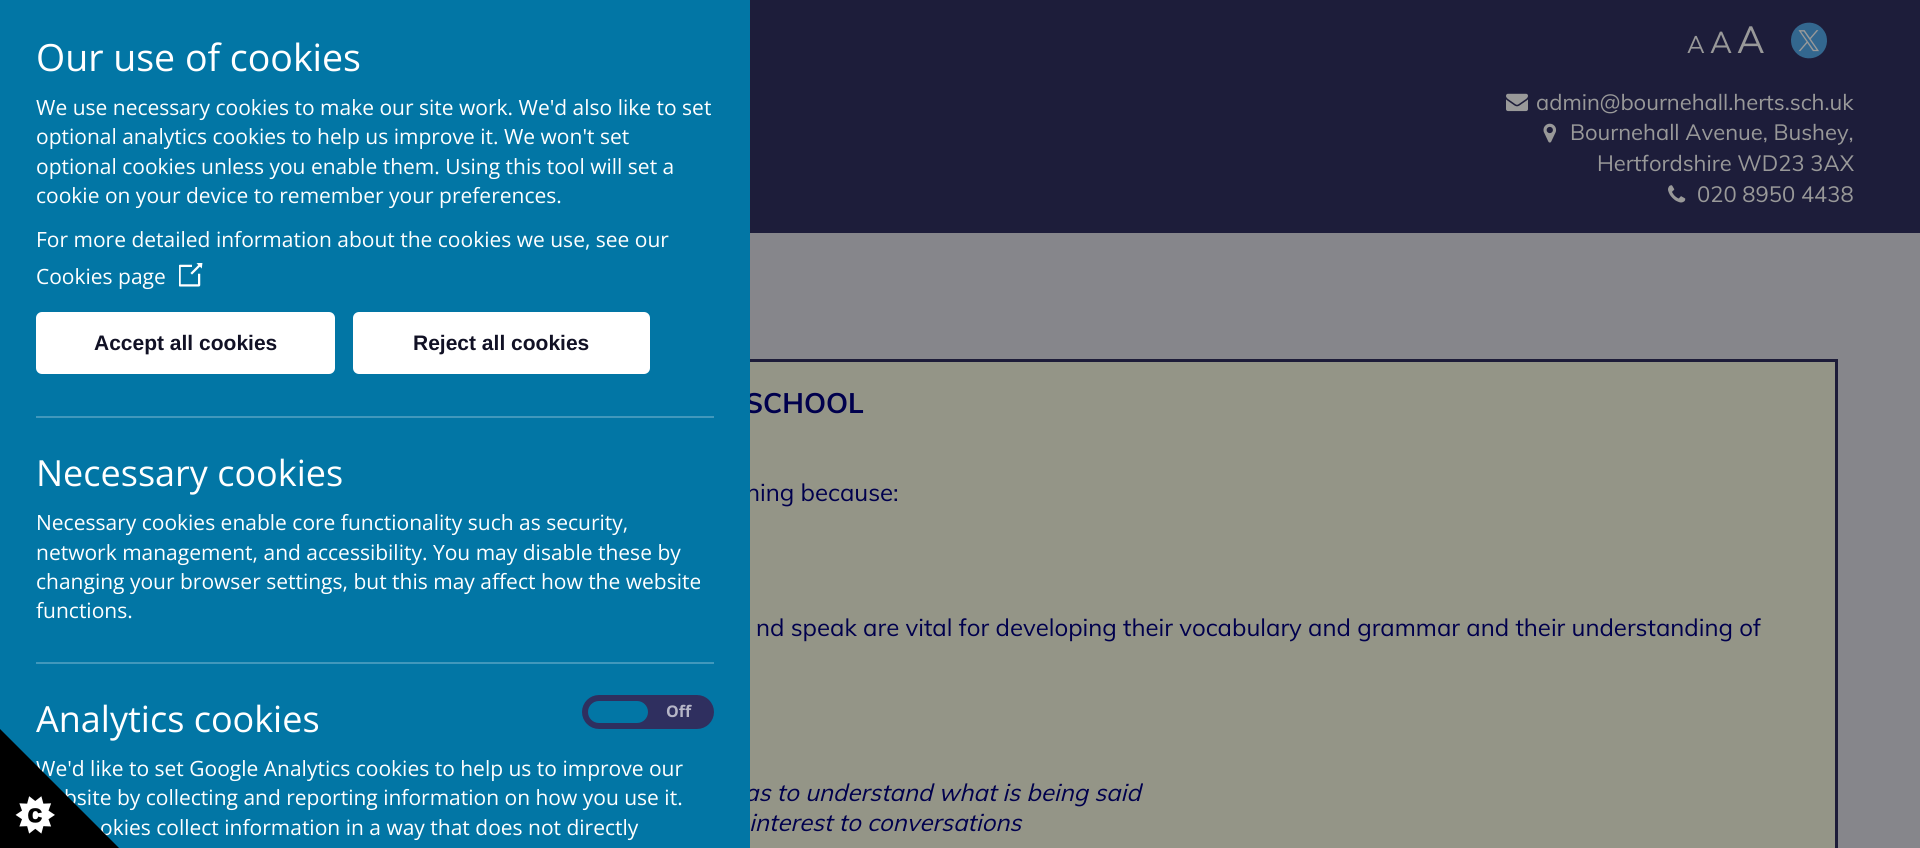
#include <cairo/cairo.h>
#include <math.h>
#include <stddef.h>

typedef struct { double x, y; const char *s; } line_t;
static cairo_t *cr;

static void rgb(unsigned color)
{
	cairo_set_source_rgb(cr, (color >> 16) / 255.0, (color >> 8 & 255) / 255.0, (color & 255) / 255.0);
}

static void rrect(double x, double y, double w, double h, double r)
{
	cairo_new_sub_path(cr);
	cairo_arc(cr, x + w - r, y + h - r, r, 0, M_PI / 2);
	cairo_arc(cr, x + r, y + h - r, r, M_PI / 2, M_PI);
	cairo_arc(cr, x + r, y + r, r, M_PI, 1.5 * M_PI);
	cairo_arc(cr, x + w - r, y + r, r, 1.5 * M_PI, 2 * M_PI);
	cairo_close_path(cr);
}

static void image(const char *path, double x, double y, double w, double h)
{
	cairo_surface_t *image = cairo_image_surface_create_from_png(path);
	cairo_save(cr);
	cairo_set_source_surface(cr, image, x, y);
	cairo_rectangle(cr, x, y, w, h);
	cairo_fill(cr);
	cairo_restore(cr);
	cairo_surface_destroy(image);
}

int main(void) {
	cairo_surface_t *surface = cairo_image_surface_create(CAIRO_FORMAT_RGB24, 1920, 848);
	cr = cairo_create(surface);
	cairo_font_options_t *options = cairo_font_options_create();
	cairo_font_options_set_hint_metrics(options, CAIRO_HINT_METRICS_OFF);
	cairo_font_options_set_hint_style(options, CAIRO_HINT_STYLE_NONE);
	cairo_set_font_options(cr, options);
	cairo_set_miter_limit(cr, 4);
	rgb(0x1d1d3a);
	cairo_paint(cr);
	rgb(0x33678f);
	cairo_new_path(cr);
	cairo_move_to(cr, 1824.5, 31.5);
	cairo_curve_to(cr, 1826.5, 34.5, 1827, 38, 1827, 41.5);
	cairo_curve_to(cr, 1826, 59.5, 1802.5, 64.5, 1793.5, 49.5);
	cairo_curve_to(cr, 1791.5, 46.5, 1791, 43, 1791, 39.5);
	cairo_curve_to(cr, 1792, 21.5, 1815.5, 16.5, 1824.5, 31.5);
	cairo_close_path(cr);
	cairo_fill(cr);
	image("img/3.png", 1798, 30, 21, 22);
	image("img/4.png", 1506, 93, 22, 19);
	image("img/5.png", 1543, 123, 14, 20);
	image("img/6.png", 1668, 185, 18, 18);
	rgb(0x86868b);
	cairo_rectangle(cr, 750, 233, 1170, 615);
	cairo_fill(cr);
	rgb(0x949587);
	cairo_rectangle(cr, 750, 362, 1085, 486);
	cairo_fill(cr);
	cairo_rectangle(cr, 84.5, 360.5, 1752, 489);
	rgb(0x1d1c39);
	cairo_set_line_width(cr, 3);
	cairo_stroke(cr);
	cairo_select_font_face(cr, "Muli", CAIRO_FONT_SLANT_NORMAL, CAIRO_FONT_WEIGHT_NORMAL);
	cairo_set_font_size(cr, 24);
	rgb(0x999999);
	cairo_move_to(cr, 1687, 53);
	cairo_show_text(cr, "A");
	cairo_set_font_size(cr, 30);
	cairo_move_to(cr, 1710, 53);
	cairo_show_text(cr, "A");
	cairo_set_font_size(cr, 37.5);
	cairo_move_to(cr, 1737, 53);
	cairo_show_text(cr, "A");
	cairo_set_font_size(cr, 22);
	{
		static const line_t items[] = {
			{1536, 110, "admin@bournehall.herts.sch.uk"},
			{1570, 140, "Bournehall Avenue, Bushey,"},
			{1597, 171, "Hertfordshire WD23 3AX"},
			{1697, 202, "020 8950 4438"},
		};
		for (size_t i = 0; i < sizeof items / sizeof *items; i++) {
			cairo_move_to(cr, items[i].x, items[i].y);
			cairo_show_text(cr, items[i].s);
		}
	}
	cairo_select_font_face(cr, "Muli", CAIRO_FONT_SLANT_NORMAL, CAIRO_FONT_WEIGHT_BOLD);
	cairo_set_font_size(cr, 28);
	rgb(0x00004d);
	cairo_move_to(cr, 745, 413);
	cairo_show_text(cr, "SCHOOL");
	cairo_select_font_face(cr, "Muli", CAIRO_FONT_SLANT_NORMAL, CAIRO_FONT_WEIGHT_NORMAL);
	cairo_set_font_size(cr, 24);
	cairo_move_to(cr, 746, 501);
	cairo_show_text(cr, "ning because:");
	cairo_move_to(cr, 756, 636);
	cairo_show_text(cr, "nd speak are vital for developing their vocabulary and grammar and their understanding of");
	cairo_select_font_face(cr, "Muli", CAIRO_FONT_SLANT_ITALIC, CAIRO_FONT_WEIGHT_NORMAL);
	cairo_move_to(cr, 744, 801);
	cairo_show_text(cr, "as to understand what is being said");
	rgb(0x0276a5);
	cairo_rectangle(cr, 0, 0, 750, 848);
	cairo_fill(cr);
	cairo_select_font_face(cr, "Open Sans", CAIRO_FONT_SLANT_NORMAL, CAIRO_FONT_WEIGHT_NORMAL);
	cairo_set_font_size(cr, 21);
	rgb(0xffffff);
	{
		static const line_t items[] = {
			{100, 835, "okies collect information in a way that does not directly"},
			{64, 805, "bsite by collecting and reporting information on how you use it."},
			{36, 776, "We'd like to set Google Analytics cookies to help us to improve our"},
		};
		for (size_t i = 0; i < sizeof items / sizeof *items; i++) {
			cairo_move_to(cr, items[i].x, items[i].y);
			cairo_show_text(cr, items[i].s);
		}
	}
	cairo_set_font_size(cr, 36);
	cairo_move_to(cr, 36, 732);
	cairo_show_text(cr, "Analytics cookies");
	image("img/2.png", 0, 729, 119, 119);
	rgb(0x2f2f5f);
	rrect(585, 698, 126, 28, 14);
	cairo_fill_preserve(cr);
	cairo_set_line_width(cr, 6);
	cairo_stroke(cr);
	rgb(0x0276a5);
	rrect(588, 701, 60, 22, 11);
	cairo_fill(cr);
	cairo_select_font_face(cr, "Open Sans", CAIRO_FONT_SLANT_NORMAL, CAIRO_FONT_WEIGHT_BOLD);
	cairo_set_font_size(cr, 16);
	rgb(0xb6b6c7);
	cairo_move_to(cr, 666, 717);
	cairo_show_text(cr, "Off");
	rgb(0x4198bc);
	cairo_rectangle(cr, 36, 662, 678, 2);
	cairo_fill(cr);
	cairo_rectangle(cr, 36, 416, 678, 2);
	cairo_fill(cr);
	image("img/1.png", 179, 263, 24, 24);
	cairo_select_font_face(cr, "Open Sans", CAIRO_FONT_SLANT_NORMAL, CAIRO_FONT_WEIGHT_NORMAL);
	cairo_set_font_size(cr, 21);
	rgb(0xffffff);
	{
		static const line_t items[] = {
			{36, 618, "functions."},
			{36, 589, "changing your browser settings, but this may affect how the website"},
			{36, 560, "network management, and accessibility. You may disable these by"},
			{36, 530, "Necessary cookies enable core functionality such as security,"},
		};
		for (size_t i = 0; i < sizeof items / sizeof *items; i++) {
			cairo_move_to(cr, items[i].x, items[i].y);
			cairo_show_text(cr, items[i].s);
		}
	}
	cairo_set_font_size(cr, 36);
	cairo_move_to(cr, 36, 486);
	cairo_show_text(cr, "Necessary cookies");
	rrect(354.5, 313.5, 294, 59, 4.5);
	cairo_fill_preserve(cr);
	cairo_set_line_width(cr, 3);
	cairo_stroke(cr);
	cairo_select_font_face(cr, "Liberation Sans", CAIRO_FONT_SLANT_NORMAL, CAIRO_FONT_WEIGHT_BOLD);
	cairo_set_font_size(cr, 21);
	rgb(0x111125);
	cairo_move_to(cr, 413, 350);
	cairo_show_text(cr, "Reject all cookies");
	rgb(0xffffff);
	rrect(37.5, 313.5, 296, 59, 4.5);
	cairo_fill_preserve(cr);
	cairo_stroke(cr);
	rgb(0x111125);
	cairo_move_to(cr, 94, 350);
	cairo_show_text(cr, "Accept all cookies");
	cairo_select_font_face(cr, "Open Sans", CAIRO_FONT_SLANT_NORMAL, CAIRO_FONT_WEIGHT_NORMAL);
	rgb(0xffffff);
	{
		static const line_t items[] = {
			{36, 284, "Cookies page"},
			{36, 247, "For more detailed information about the cookies we use, see our"},
			{36, 203, "cookie on your device to remember your preferences."},
			{36, 174, "optional cookies unless you enable them. Using this tool will set a"},
			{36, 144, "optional analytics cookies to help us improve it. We won't set"},
			{36, 115, "We use necessary cookies to make our site work. We'd also like to set"},
		};
		for (size_t i = 0; i < sizeof items / sizeof *items; i++) {
			cairo_move_to(cr, items[i].x, items[i].y);
			cairo_show_text(cr, items[i].s);
		}
	}
	cairo_set_font_size(cr, 37.5);
	cairo_move_to(cr, 36, 71);
	cairo_show_text(cr, "Our use of cookies");
	cairo_select_font_face(cr, "Muli", CAIRO_FONT_SLANT_ITALIC, CAIRO_FONT_WEIGHT_NORMAL);
	cairo_set_font_size(cr, 24);
	rgb(0x00004d);
	cairo_move_to(cr, 749, 831);
	cairo_show_text(cr, "interest to conversations");
	cairo_surface_write_to_png(surface, "page.png");
	cairo_font_options_destroy(options);
	cairo_destroy(cr);
	cairo_surface_destroy(surface);
	return 0;
}
